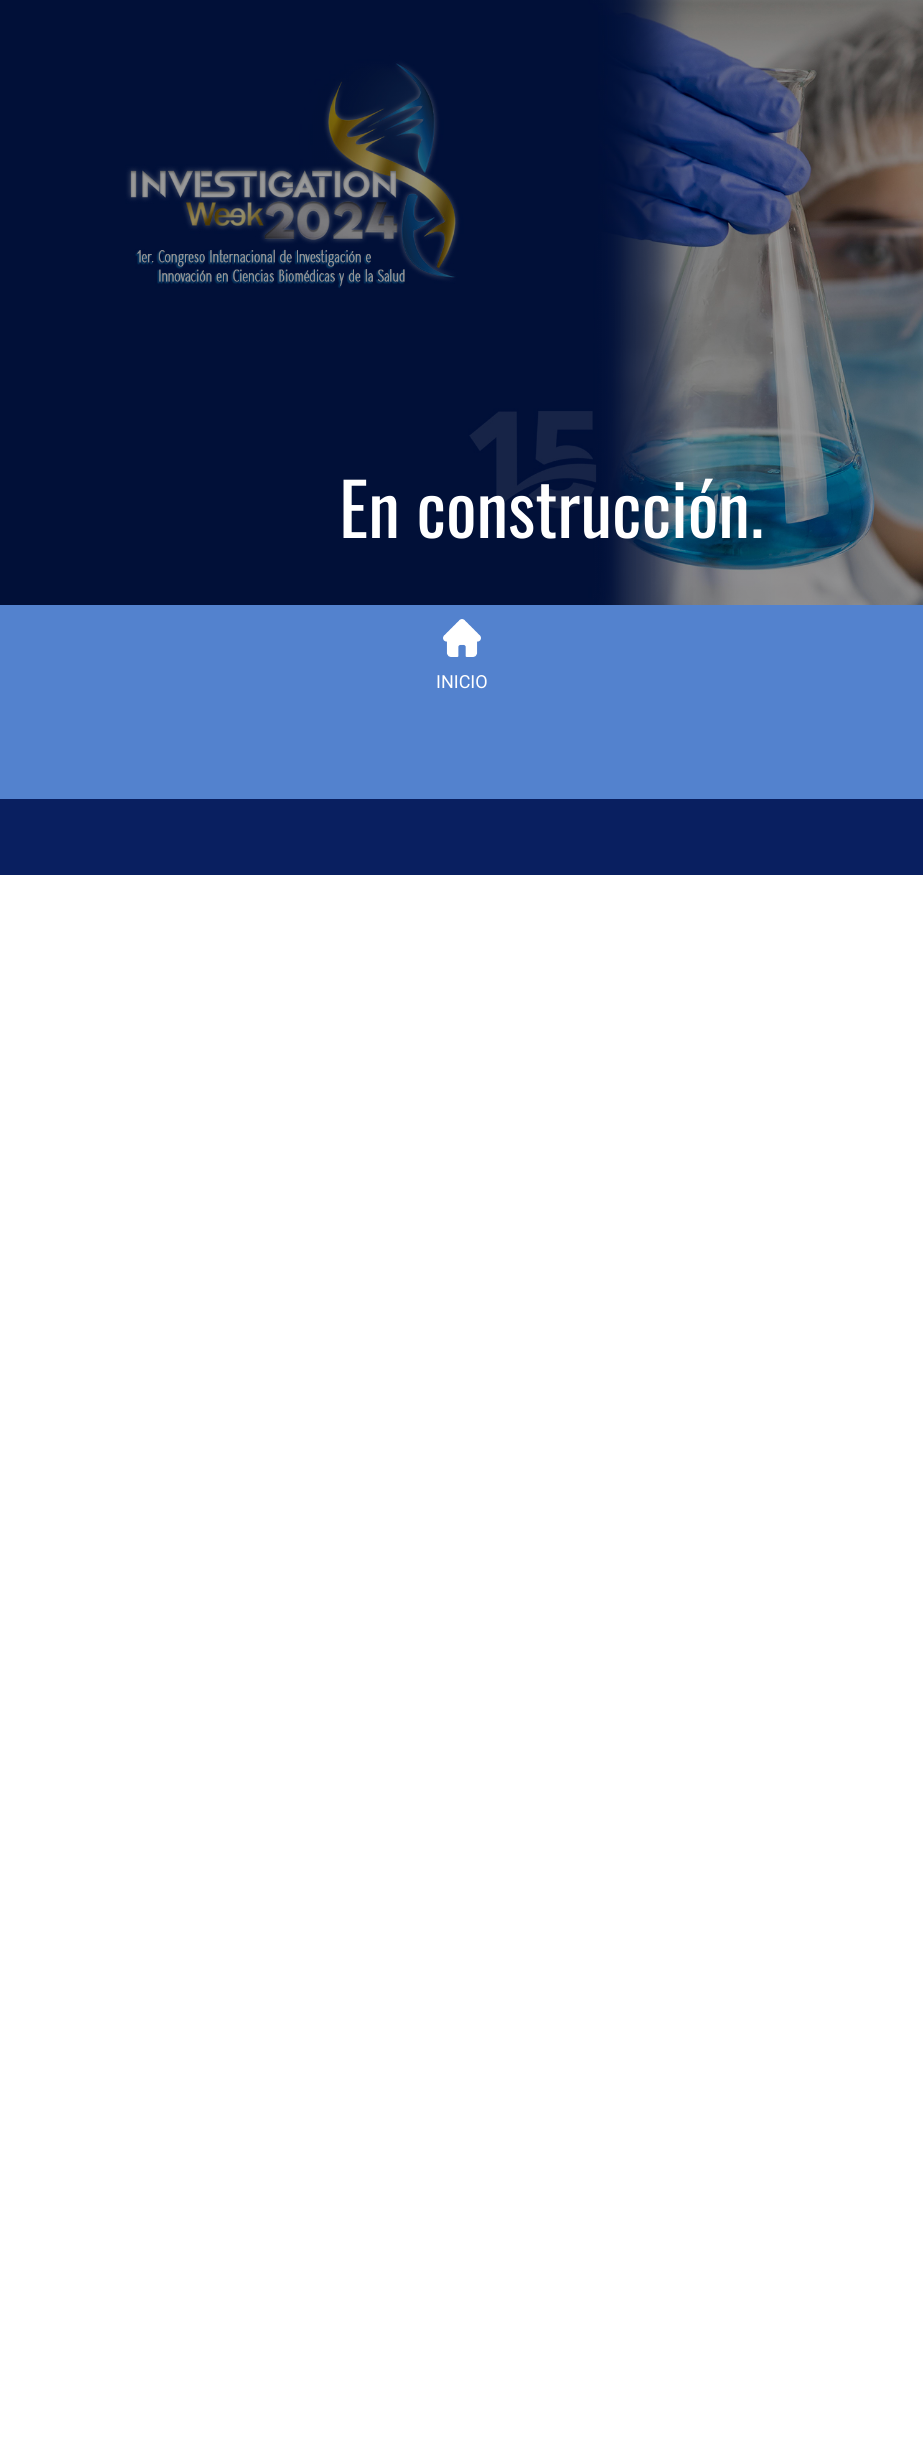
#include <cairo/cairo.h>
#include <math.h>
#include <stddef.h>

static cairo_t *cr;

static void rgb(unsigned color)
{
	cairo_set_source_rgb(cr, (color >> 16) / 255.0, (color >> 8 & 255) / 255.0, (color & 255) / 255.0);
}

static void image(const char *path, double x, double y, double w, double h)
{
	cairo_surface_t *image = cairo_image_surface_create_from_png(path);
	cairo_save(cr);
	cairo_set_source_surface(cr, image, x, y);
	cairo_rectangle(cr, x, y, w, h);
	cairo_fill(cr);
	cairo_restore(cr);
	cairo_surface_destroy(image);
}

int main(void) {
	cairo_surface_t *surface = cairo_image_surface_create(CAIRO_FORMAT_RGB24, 923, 2463);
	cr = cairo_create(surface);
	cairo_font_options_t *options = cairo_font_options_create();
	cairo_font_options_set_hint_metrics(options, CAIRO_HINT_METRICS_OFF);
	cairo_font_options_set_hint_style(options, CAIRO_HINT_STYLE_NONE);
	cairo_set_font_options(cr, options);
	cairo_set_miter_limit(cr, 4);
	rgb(0xffffff);
	cairo_paint(cr);
	image("img/1.png", 0, 0, 923, 605);
	rgb(0x5382ce);
	cairo_rectangle(cr, 0, 605, 923, 194);
	cairo_fill(cr);
	image("img/2.png", 443, 619, 38, 38);
	rgb(0x091f60);
	cairo_rectangle(cr, 0, 799, 923, 76);
	cairo_fill(cr);
	cairo_select_font_face(cr, "Oswald", CAIRO_FONT_SLANT_NORMAL, CAIRO_FONT_WEIGHT_NORMAL);
	cairo_set_font_size(cr, 72);
	rgb(0xffffff);
	cairo_move_to(cr, 339, 538);
	cairo_show_text(cr, "En construcción.");
	cairo_select_font_face(cr, "Roboto", CAIRO_FONT_SLANT_NORMAL, CAIRO_FONT_WEIGHT_NORMAL);
	cairo_set_font_size(cr, 18);
	cairo_move_to(cr, 436, 688);
	cairo_show_text(cr, "INICIO");
	cairo_surface_write_to_png(surface, "page.png");
	cairo_font_options_destroy(options);
	cairo_destroy(cr);
	cairo_surface_destroy(surface);
	return 0;
}
